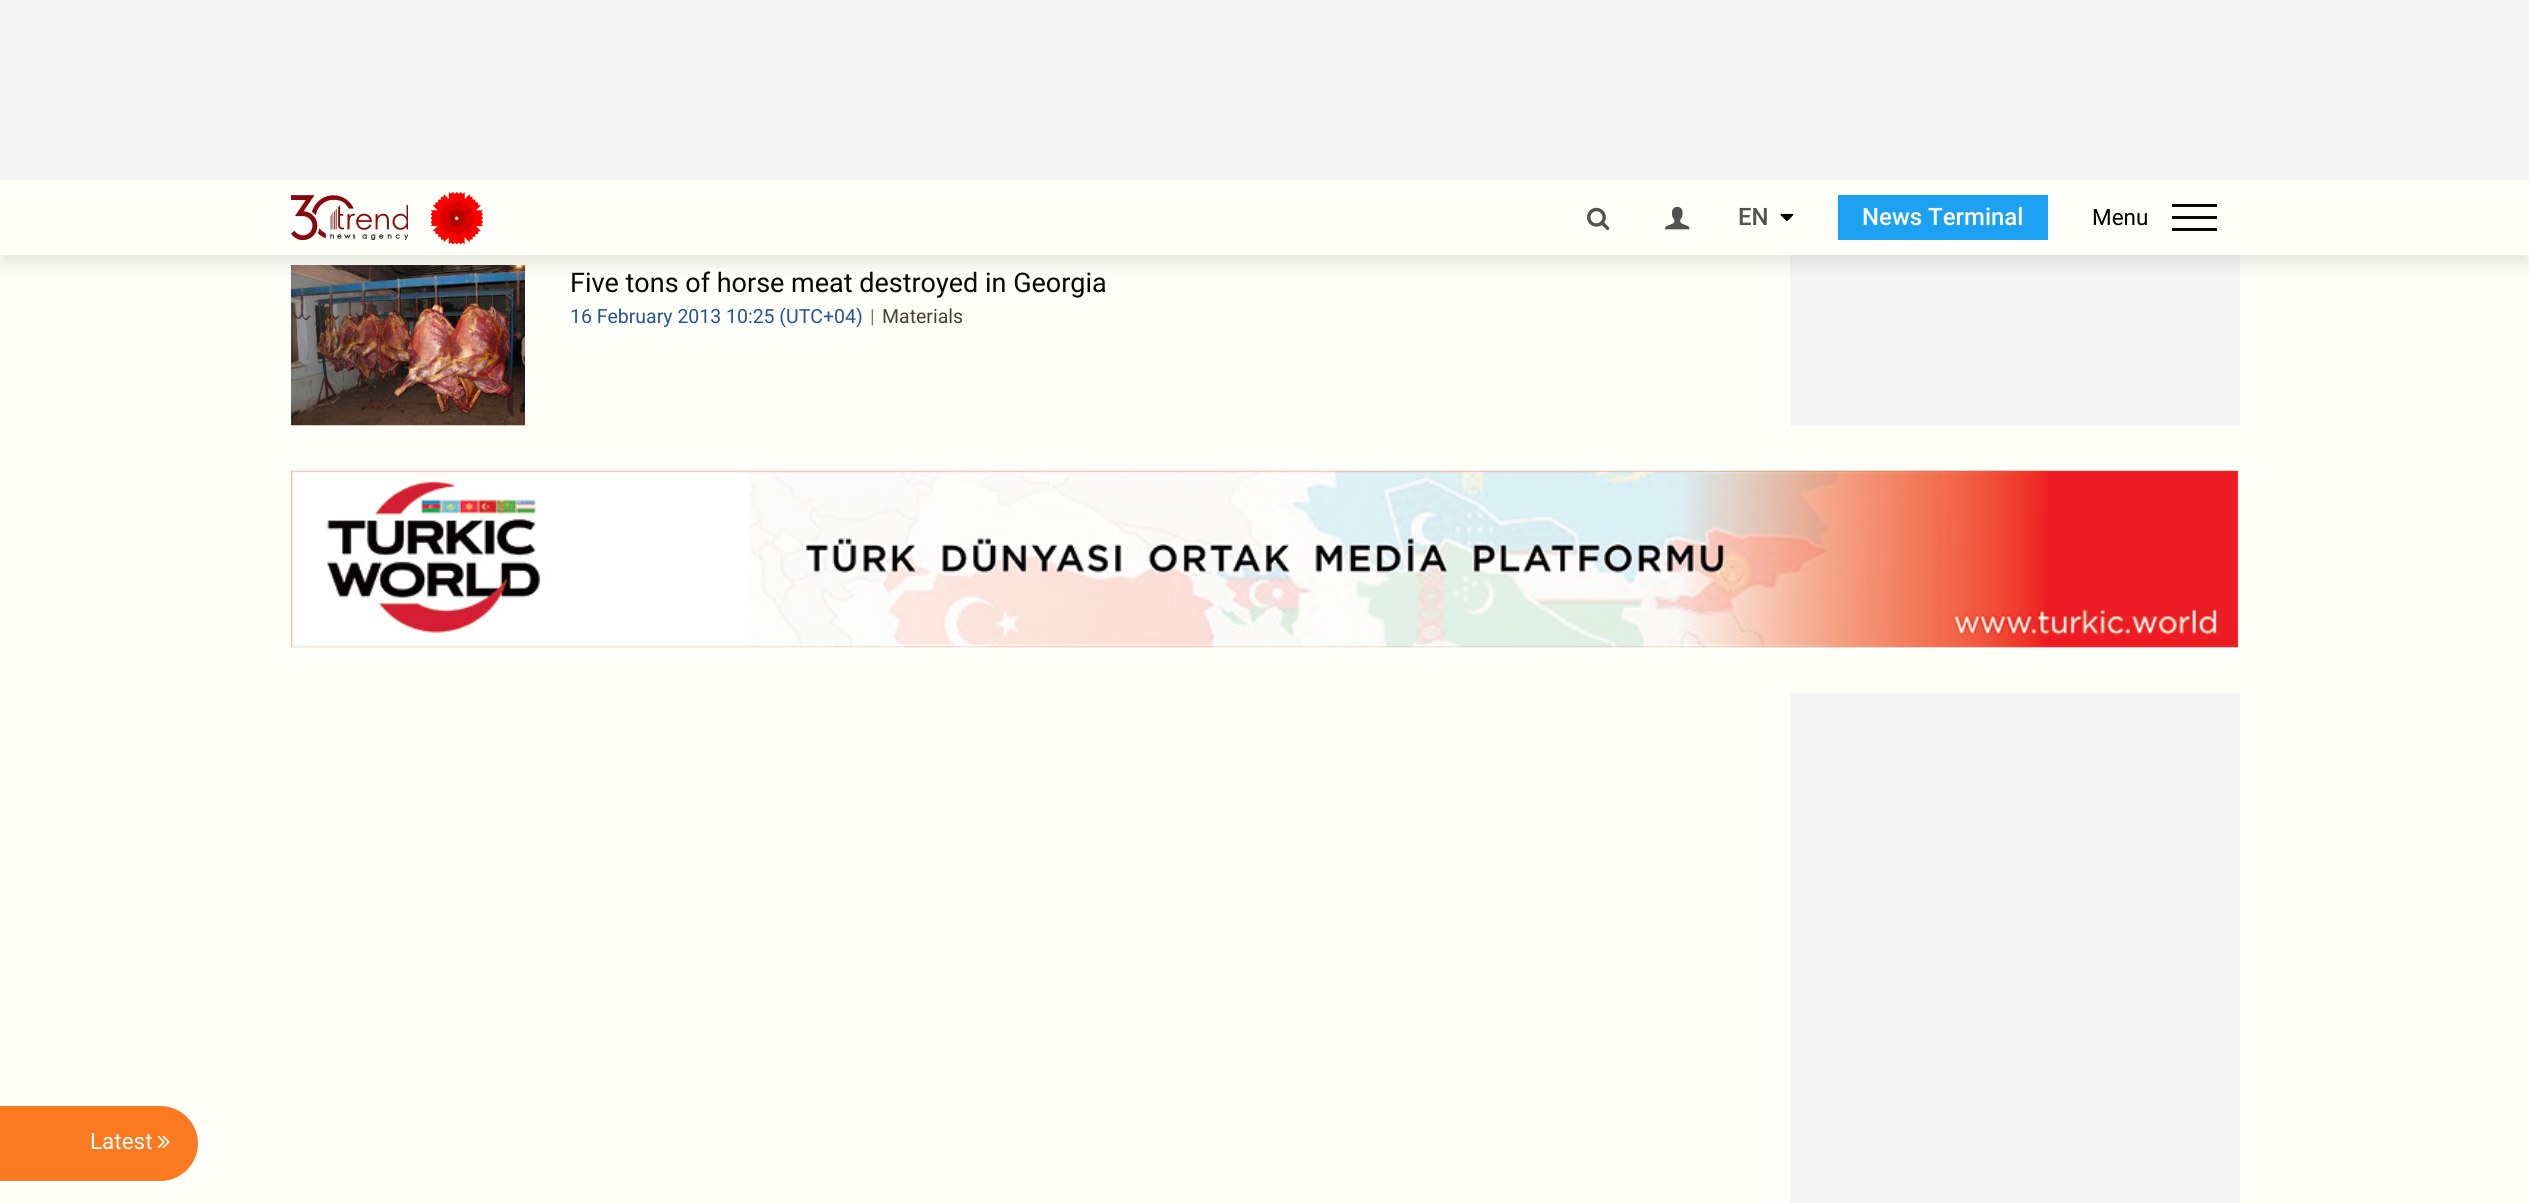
#include <cairo/cairo.h>
#include <math.h>
#include <stddef.h>

typedef struct { double x, y, w, h; unsigned color; } box_t;
static cairo_t *cr;

static void rgb(unsigned color)
{
	cairo_set_source_rgb(cr, (color >> 16) / 255.0, (color >> 8 & 255) / 255.0, (color & 255) / 255.0);
}

static void rrect(double x, double y, double w, double h, double r)
{
	cairo_new_sub_path(cr);
	cairo_arc(cr, x + w - r, y + h - r, r, 0, M_PI / 2);
	cairo_arc(cr, x + r, y + h - r, r, M_PI / 2, M_PI);
	cairo_arc(cr, x + r, y + r, r, M_PI, 1.5 * M_PI);
	cairo_arc(cr, x + w - r, y + r, r, 1.5 * M_PI, 2 * M_PI);
	cairo_close_path(cr);
}

static void soft_shadow(double x, double y, double w, double h, double r, double blur, double alpha)
{
	cairo_push_group_with_content(cr, CAIRO_CONTENT_ALPHA);
	cairo_set_operator(cr, CAIRO_OPERATOR_SOURCE);
	for (int i = 15; i >= -15 && fmin(w, h) + blur * i / 3 > 0; i -= 2) {
		double e = blur * i / 6;
		cairo_set_source_rgba(cr, 0, 0, 0, alpha * erfc((i - 1) / 8.5) / 2);
		rrect(x - e, y - e, w + 2 * e, h + 2 * e, fmax(0, fmin(r + e + blur * .6, fmin(w, h) / 2 + e)));
		cairo_fill(cr);
	}
	cairo_pattern_t *soft = cairo_pop_group(cr);
	cairo_mask(cr, soft);
	cairo_pattern_destroy(soft);
}

static void image(const char *path, double x, double y, double w, double h)
{
	cairo_surface_t *image = cairo_image_surface_create_from_png(path);
	cairo_save(cr);
	cairo_set_source_surface(cr, image, x, y);
	cairo_rectangle(cr, x, y, w, h);
	cairo_fill(cr);
	cairo_restore(cr);
	cairo_surface_destroy(image);
}

int main(void) {
	cairo_surface_t *surface = cairo_image_surface_create(CAIRO_FORMAT_RGB24, 2529, 1203);
	cr = cairo_create(surface);
	cairo_font_options_t *options = cairo_font_options_create();
	cairo_font_options_set_hint_metrics(options, CAIRO_HINT_METRICS_OFF);
	cairo_font_options_set_hint_style(options, CAIRO_HINT_STYLE_NONE);
	cairo_set_font_options(cr, options);
	cairo_set_miter_limit(cr, 4);
	cairo_pattern_t *gradient;
	rgb(0xfffffa);
	cairo_paint(cr);
	gradient = cairo_pattern_create_linear(309, 444, 507, 247);
	cairo_pattern_add_color_stop_rgba(gradient, 0, 1, 1, 1, 1);
	cairo_pattern_add_color_stop_rgba(gradient, 0.5, 0.961, 0.961, 0.961, 1);
	cairo_pattern_add_color_stop_rgba(gradient, 1, 0.91, 0.91, 0.91, 1);
	cairo_set_source(cr, gradient);
	cairo_pattern_destroy(gradient);
	cairo_rectangle(cr, 291, 425, 234, 1);
	cairo_fill(cr);
	image("img/6.png", 291, 265, 234, 161);
	rgb(0xf5f5f5);
	cairo_rectangle(cr, 1790, 255, 450, 171);
	cairo_fill(cr);
	rgb(0x000000);
	soft_shadow(0, 189, 2529, 75, 0, 7.5, 0.1);
	rgb(0xf5f5f5);
	cairo_rectangle(cr, 0, 0, 2529, 180);
	cairo_fill(cr);
	rgb(0xfffffa);
	cairo_rectangle(cr, 0, 180, 2529, 75);
	cairo_fill(cr);
	image("img/1.png", 291, 195, 117, 46);
	image("img/2.png", 431, 192, 52, 53);
	image("img/3.png", 1587, 207, 23, 24);
	image("img/4.png", 1665, 206, 25, 24);
	image("img/5.png", 1780, 213, 14, 9);
	{
		static const box_t items[] = {
			{1838, 195, 210, 45, 0x1da1f2},
			{2172, 204, 45, 3, 0x080705},
			{2172, 216, 45, 3, 0x080705},
			{2172, 228, 45, 3, 0x080705},
			{291, 471, 1949, 177, 0xf5f5f5},
		};
		for (size_t i = 0; i < sizeof items / sizeof *items; i++) {
			rgb(items[i].color);
			cairo_rectangle(cr, items[i].x, items[i].y, items[i].w, items[i].h);
			cairo_fill(cr);
		}
	}
	image("img/7.png", 291, 470, 1947, 178);
	cairo_rectangle(cr, 1790, 693, 450, 510);
	cairo_fill(cr);
	rgb(0xfa7921);
	cairo_new_path(cr);
	cairo_move_to(cr, 0, 1106);
	cairo_line_to(cr, 160.5, 1106);
	cairo_curve_to(cr, 181, 1106, 198, 1123, 198, 1143.5);
	cairo_curve_to(cr, 198, 1164, 181, 1181, 160.5, 1181);
	cairo_line_to(cr, 0, 1181);
	cairo_close_path(cr);
	cairo_fill(cr);
	image("img/8.png", 157, 1135, 13, 14);
	cairo_select_font_face(cr, "Roboto Medium", CAIRO_FONT_SLANT_NORMAL, CAIRO_FONT_WEIGHT_NORMAL);
	cairo_set_font_size(cr, 24);
	rgb(0x515252);
	cairo_move_to(cr, 1738, 225);
	cairo_show_text(cr, "EN");
	rgb(0xfffffa);
	cairo_move_to(cr, 1862, 225);
	cairo_show_text(cr, "News Terminal");
	cairo_select_font_face(cr, "Roboto", CAIRO_FONT_SLANT_NORMAL, CAIRO_FONT_WEIGHT_NORMAL);
	cairo_set_font_size(cr, 22.5);
	rgb(0x000000);
	cairo_move_to(cr, 2092, 225);
	cairo_show_text(cr, "Menu");
	cairo_set_font_size(cr, 27);
	rgb(0x080705);
	cairo_move_to(cr, 570, 292);
	cairo_show_text(cr, "Five tons of horse meat destroyed in Georgia");
	cairo_set_font_size(cr, 19.5);
	rgb(0x245494);
	cairo_move_to(cr, 570, 323);
	cairo_show_text(cr, "16 February 2013 10:25 (UTC+04)");
	rgb(0x777979);
	cairo_move_to(cr, 870, 323);
	cairo_show_text(cr, "|");
	rgb(0x434138);
	cairo_move_to(cr, 882, 323);
	cairo_show_text(cr, "Materials");
	cairo_set_font_size(cr, 22.5);
	rgb(0xfffffa);
	cairo_move_to(cr, 90, 1149);
	cairo_show_text(cr, "Latest");
	cairo_surface_write_to_png(surface, "page.png");
	cairo_font_options_destroy(options);
	cairo_destroy(cr);
	cairo_surface_destroy(surface);
	return 0;
}
